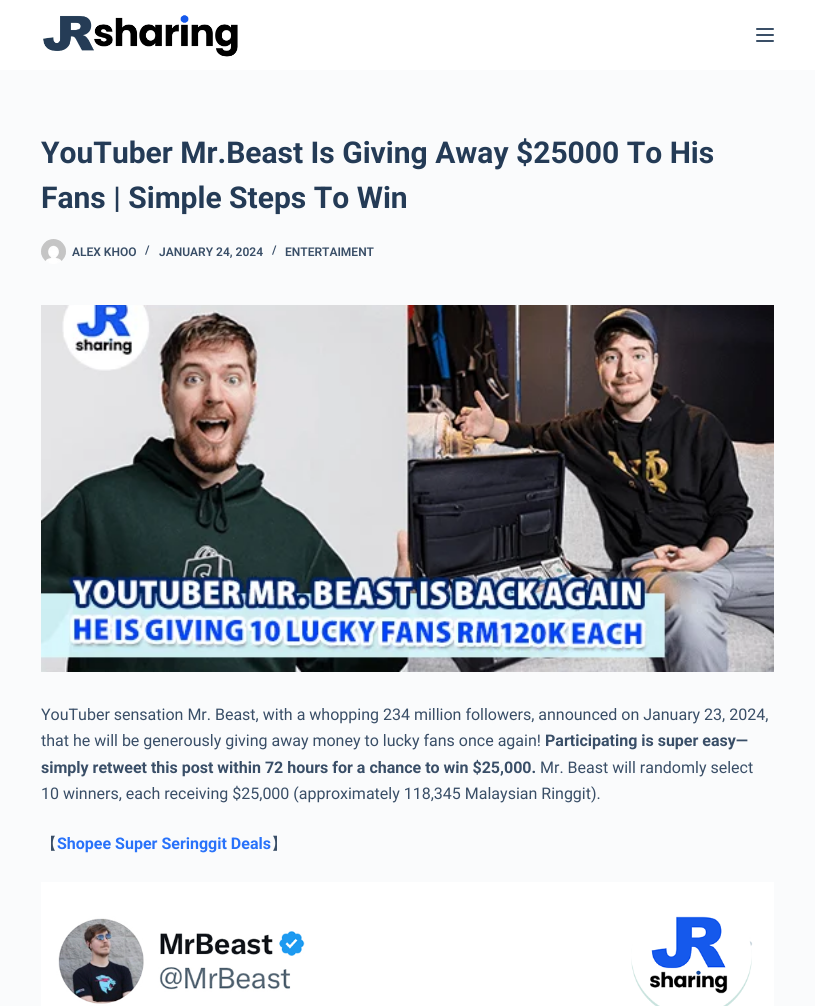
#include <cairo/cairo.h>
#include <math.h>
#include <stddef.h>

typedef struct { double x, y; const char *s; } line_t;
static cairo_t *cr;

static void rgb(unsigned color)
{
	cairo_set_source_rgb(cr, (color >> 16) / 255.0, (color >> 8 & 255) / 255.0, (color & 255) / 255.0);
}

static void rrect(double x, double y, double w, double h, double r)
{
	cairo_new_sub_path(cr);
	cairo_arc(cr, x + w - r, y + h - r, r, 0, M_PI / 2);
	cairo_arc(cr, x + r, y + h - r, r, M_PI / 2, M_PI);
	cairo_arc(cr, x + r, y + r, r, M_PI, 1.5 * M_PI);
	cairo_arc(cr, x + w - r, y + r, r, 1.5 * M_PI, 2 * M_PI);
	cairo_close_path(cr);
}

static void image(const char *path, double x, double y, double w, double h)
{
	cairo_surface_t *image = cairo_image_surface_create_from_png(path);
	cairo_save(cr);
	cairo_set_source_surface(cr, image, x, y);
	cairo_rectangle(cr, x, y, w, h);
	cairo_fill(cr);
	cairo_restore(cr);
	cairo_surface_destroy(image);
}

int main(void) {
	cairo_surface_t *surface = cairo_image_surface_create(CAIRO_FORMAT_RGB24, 815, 1006);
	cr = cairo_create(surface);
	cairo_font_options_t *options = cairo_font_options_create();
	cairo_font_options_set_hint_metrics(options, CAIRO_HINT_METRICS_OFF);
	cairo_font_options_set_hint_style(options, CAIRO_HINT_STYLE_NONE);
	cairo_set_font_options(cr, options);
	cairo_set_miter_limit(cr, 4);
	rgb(0xfafbfc);
	cairo_paint(cr);
	rgb(0xffffff);
	cairo_rectangle(cr, 0, 0, 815, 70);
	cairo_fill(cr);
	image("img/1.png", 43, 15, 195, 42);
	rgb(0x3a4f67);
	rrect(756, 28, 18, 2, 1);
	cairo_fill(cr);
	rrect(756, 34, 18, 2, 1);
	cairo_fill(cr);
	rrect(756, 40, 18, 2, 1);
	cairo_fill(cr);
	image("img/2.png", 41, 239, 25, 25);
	image("img/3.png", 41, 305, 733, 367);
	image("img/4.png", 41, 882, 733, 124);
	cairo_select_font_face(cr, "Roboto", CAIRO_FONT_SLANT_NORMAL, CAIRO_FONT_WEIGHT_BOLD);
	cairo_set_font_size(cr, 30);
	rgb(0x243b56);
	cairo_move_to(cr, 41, 163);
	cairo_show_text(cr, "YouTuber Mr.Beast Is Giving Away $25000 To His");
	cairo_move_to(cr, 41, 208);
	cairo_show_text(cr, "Fans | Simple Steps To Win");
	cairo_select_font_face(cr, "Roboto SemiBold", CAIRO_FONT_SLANT_NORMAL, CAIRO_FONT_WEIGHT_NORMAL);
	cairo_set_font_size(cr, 12);
	rgb(0x394e67);
	{
		static const line_t items[] = {
			{72, 256, "ALEX KHOO"},
			{145, 254, "/"},
			{159, 256, "JANUARY 24, 2024"},
			{272, 254, "/"},
			{285, 256, "ENTERTAIMENT"},
		};
		for (size_t i = 0; i < sizeof items / sizeof *items; i++) {
			cairo_move_to(cr, items[i].x, items[i].y);
			cairo_show_text(cr, items[i].s);
		}
	}
	cairo_select_font_face(cr, "Roboto", CAIRO_FONT_SLANT_NORMAL, CAIRO_FONT_WEIGHT_NORMAL);
	cairo_set_font_size(cr, 16);
	cairo_move_to(cr, 41, 720);
	cairo_show_text(cr, "YouTuber sensation Mr. Beast, with a whopping 234 million followers, announced on January 23, 2024,");
	cairo_move_to(cr, 41, 746);
	cairo_show_text(cr, "that he will be generously giving away money to lucky fans once again!");
	cairo_select_font_face(cr, "Roboto", CAIRO_FONT_SLANT_NORMAL, CAIRO_FONT_WEIGHT_BOLD);
	cairo_move_to(cr, 545, 746);
	cairo_show_text(cr, "Participating is super easy—");
	cairo_move_to(cr, 41, 773);
	cairo_show_text(cr, "simply retweet this post within 72 hours for a chance to win $25,000.");
	cairo_select_font_face(cr, "Roboto", CAIRO_FONT_SLANT_NORMAL, CAIRO_FONT_WEIGHT_NORMAL);
	cairo_move_to(cr, 540, 773);
	cairo_show_text(cr, "Mr. Beast will randomly select");
	cairo_move_to(cr, 41, 799);
	cairo_show_text(cr, "10 winners, each receiving $25,000 (approximately 118,345 Malaysian Ringgit).");
	cairo_select_font_face(cr, "WenQuanYi Zen Hei Medium", CAIRO_FONT_SLANT_NORMAL, CAIRO_FONT_WEIGHT_NORMAL);
	cairo_move_to(cr, 41, 849);
	cairo_show_text(cr, "【");
	cairo_select_font_face(cr, "Roboto", CAIRO_FONT_SLANT_NORMAL, CAIRO_FONT_WEIGHT_BOLD);
	rgb(0x2872fa);
	cairo_move_to(cr, 57, 849);
	cairo_show_text(cr, "Shopee Super Seringgit Deals");
	cairo_select_font_face(cr, "WenQuanYi Zen Hei Medium", CAIRO_FONT_SLANT_NORMAL, CAIRO_FONT_WEIGHT_NORMAL);
	rgb(0x394e67);
	cairo_move_to(cr, 271, 849);
	cairo_show_text(cr, "】");
	cairo_surface_write_to_png(surface, "page.png");
	cairo_font_options_destroy(options);
	cairo_destroy(cr);
	cairo_surface_destroy(surface);
	return 0;
}
